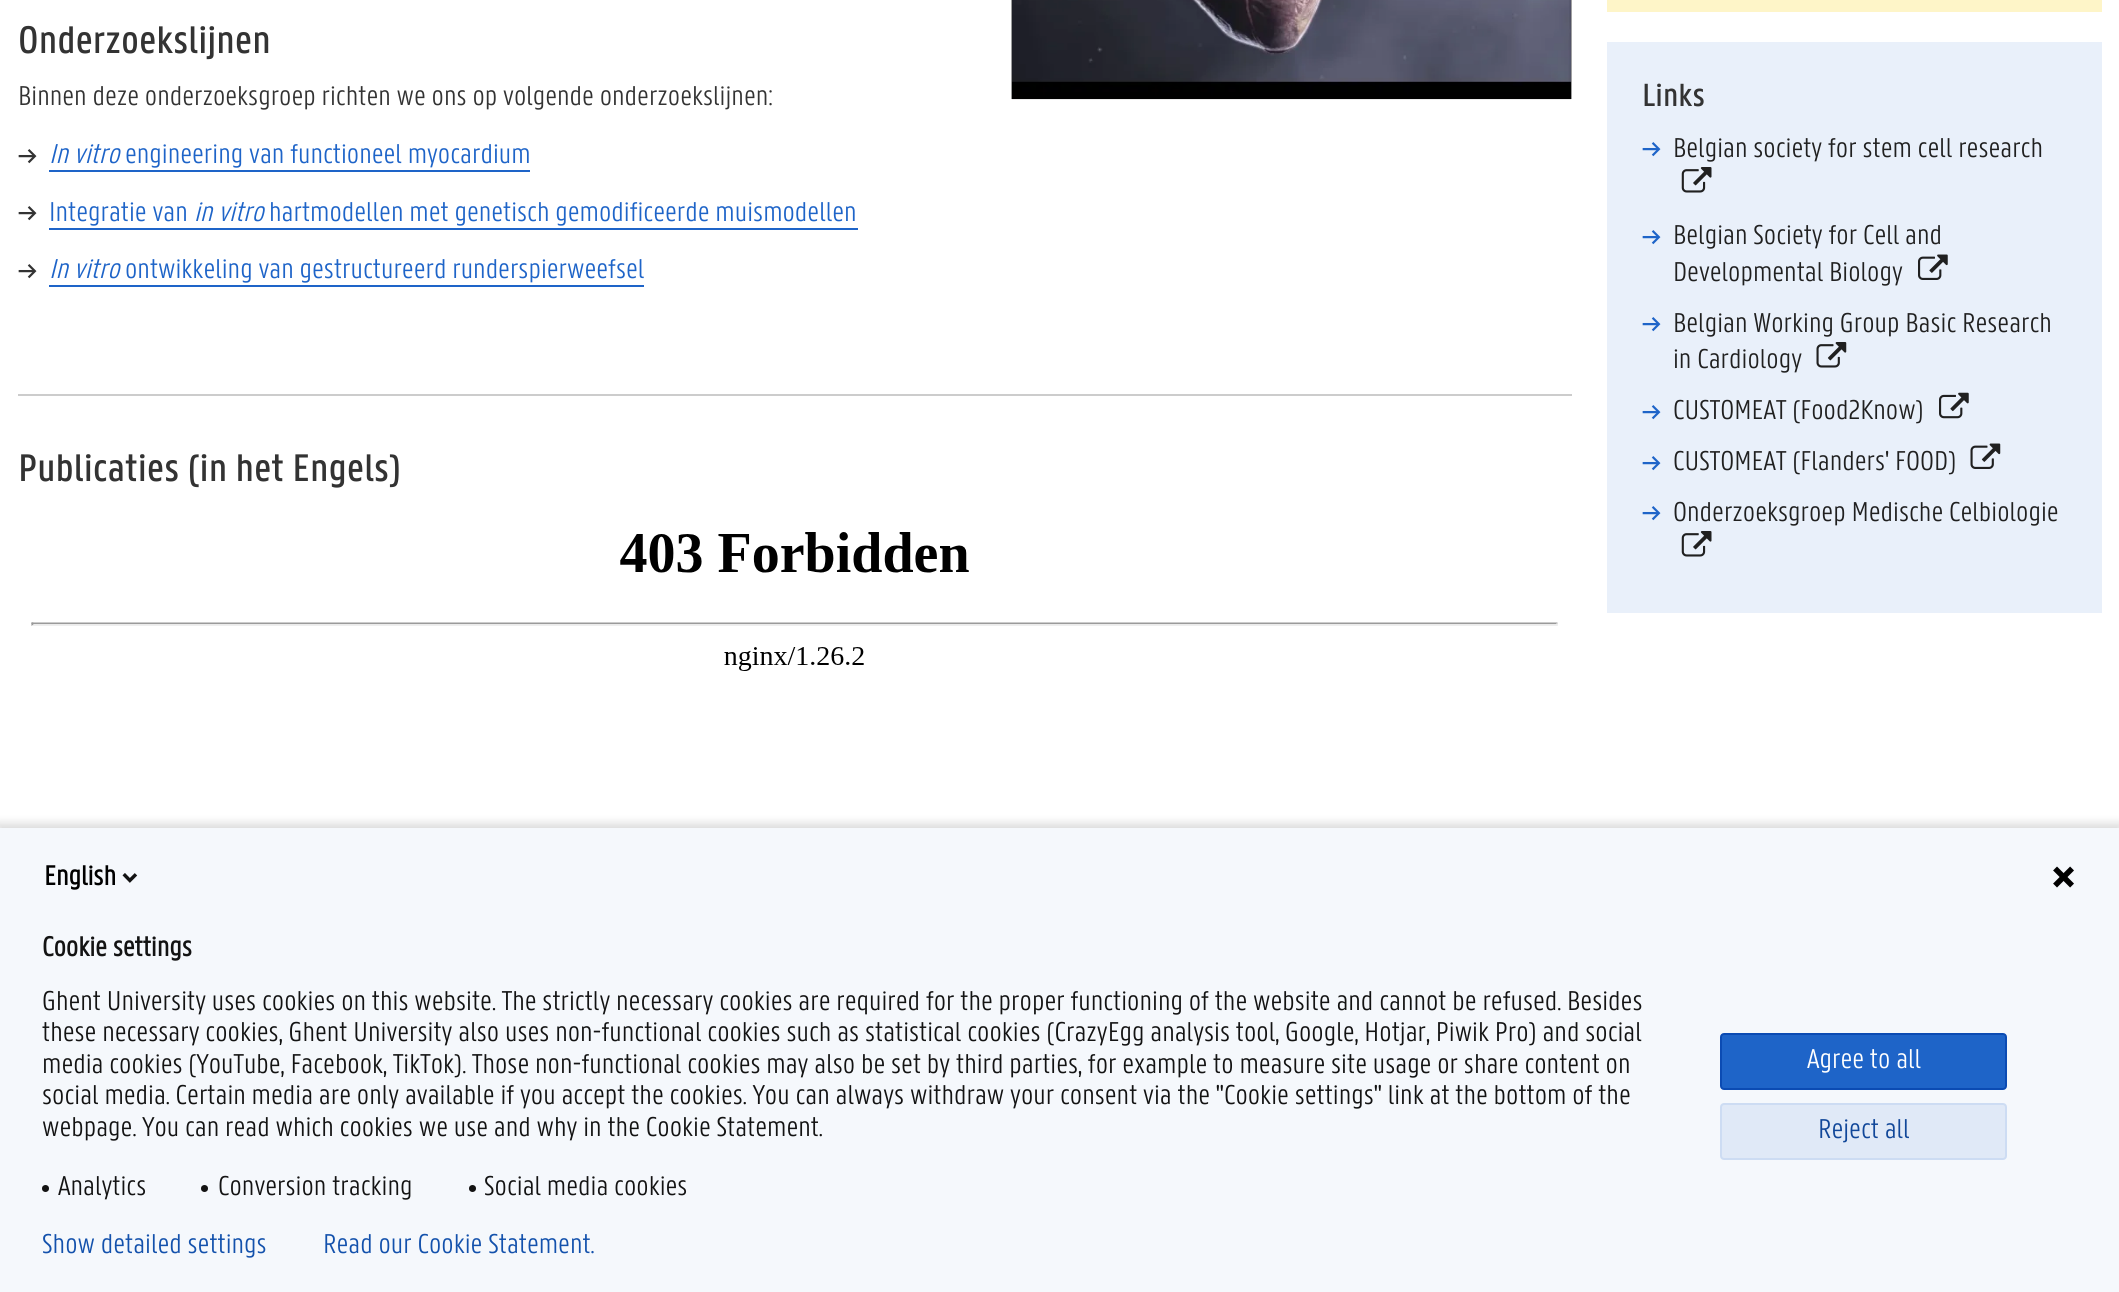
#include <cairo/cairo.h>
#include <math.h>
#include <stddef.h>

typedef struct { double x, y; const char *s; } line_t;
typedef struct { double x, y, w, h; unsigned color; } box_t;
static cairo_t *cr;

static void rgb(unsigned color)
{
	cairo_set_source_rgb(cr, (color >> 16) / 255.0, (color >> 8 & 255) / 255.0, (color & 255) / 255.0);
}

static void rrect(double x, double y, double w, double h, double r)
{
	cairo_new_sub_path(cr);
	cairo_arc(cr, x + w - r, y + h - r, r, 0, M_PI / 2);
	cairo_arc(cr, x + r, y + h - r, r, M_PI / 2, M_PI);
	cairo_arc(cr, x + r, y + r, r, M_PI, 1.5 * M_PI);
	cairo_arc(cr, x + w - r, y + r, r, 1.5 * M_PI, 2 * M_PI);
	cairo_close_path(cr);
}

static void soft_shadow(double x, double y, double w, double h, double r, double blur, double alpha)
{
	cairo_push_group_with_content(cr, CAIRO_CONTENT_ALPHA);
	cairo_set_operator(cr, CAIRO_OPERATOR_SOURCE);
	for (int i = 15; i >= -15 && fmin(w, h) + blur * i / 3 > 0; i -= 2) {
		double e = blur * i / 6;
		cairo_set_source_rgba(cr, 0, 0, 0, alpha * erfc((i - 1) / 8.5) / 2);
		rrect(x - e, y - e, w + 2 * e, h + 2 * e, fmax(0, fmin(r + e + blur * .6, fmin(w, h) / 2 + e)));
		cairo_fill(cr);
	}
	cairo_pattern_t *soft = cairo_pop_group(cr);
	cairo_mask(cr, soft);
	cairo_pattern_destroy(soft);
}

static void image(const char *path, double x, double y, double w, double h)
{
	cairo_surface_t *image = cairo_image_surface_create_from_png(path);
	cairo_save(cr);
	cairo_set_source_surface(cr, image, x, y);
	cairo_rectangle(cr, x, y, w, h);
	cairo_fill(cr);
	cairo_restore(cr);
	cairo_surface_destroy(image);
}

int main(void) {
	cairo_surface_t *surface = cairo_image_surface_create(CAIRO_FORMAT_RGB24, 2119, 1292);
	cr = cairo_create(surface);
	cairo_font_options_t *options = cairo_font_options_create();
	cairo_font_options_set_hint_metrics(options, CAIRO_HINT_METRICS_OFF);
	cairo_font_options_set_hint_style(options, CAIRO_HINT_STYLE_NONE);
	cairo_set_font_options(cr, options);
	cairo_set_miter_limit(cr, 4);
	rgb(0xffffff);
	cairo_paint(cr);
	image("img/1.png", 1011, 0, 561, 100);
	{
		static const box_t items[] = {
			{49, 170, 481, 2, 0x1e64c8},
			{49, 228, 809, 2, 0x1e64c8},
			{49, 285, 595, 2, 0x1e64c8},
			{18, 394, 1554, 2, 0xcccccc},
		};
		for (size_t i = 0; i < sizeof items / sizeof *items; i++) {
			rgb(items[i].color);
			cairo_rectangle(cr, items[i].x, items[i].y, items[i].w, items[i].h);
			cairo_fill(cr);
		}
	}
	image("img/2.png", 31, 532, 1527, 139);
	rgb(0xfef5c8);
	cairo_rectangle(cr, 1607, 0, 495, 12);
	cairo_fill(cr);
	rgb(0xe9f0fa);
	cairo_rectangle(cr, 1607, 42, 495, 571);
	cairo_fill(cr);
	image("img/3.png", 1681, 167, 31, 26);
	image("img/4.png", 1918, 254, 30, 26);
	image("img/5.png", 1816, 342, 31, 26);
	image("img/6.png", 1939, 392, 30, 27);
	image("img/7.png", 1970, 443, 31, 26);
	image("img/3.png", 1681, 531, 31, 26);
	rgb(0x000000);
	soft_shadow(-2, 823, 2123, 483, 0, 4.5, 0.14);
	rgb(0xf5f8fc);
	cairo_rectangle(cr, 0, 828, 2119, 464);
	cairo_fill(cr);
	image("img/8.png", 122, 873, 16, 10);
	image("img/9.png", 2053, 866, 21, 22);
	rgb(0x131313);
	cairo_arc(cr, 45.5, 1188.5, 3.5, 0, 2 * M_PI);
	cairo_fill(cr);
	cairo_arc(cr, 204.5, 1188.5, 3.5, 0, 2 * M_PI);
	cairo_fill(cr);
	cairo_arc(cr, 472.5, 1188.5, 3.5, 0, 2 * M_PI);
	cairo_fill(cr);
	rgb(0x1e64c8);
	rrect(1721, 1034, 285, 55, 3);
	cairo_fill_preserve(cr);
	rgb(0x0b4bb3);
	cairo_stroke(cr);
	rgb(0xe0e9f7);
	rrect(1720, 1103, 287, 57, 4);
	cairo_fill(cr);
	rrect(1721, 1104, 285, 55, 3);
	cairo_set_source_rgba(cr, 0.118, 0.392, 0.784, 0.1);
	cairo_stroke(cr);
	cairo_select_font_face(cr, "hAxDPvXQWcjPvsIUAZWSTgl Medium", CAIRO_FONT_SLANT_NORMAL, CAIRO_FONT_WEIGHT_NORMAL);
	cairo_set_font_size(cr, 42);
	rgb(0x333333);
	cairo_move_to(cr, 18, 53);
	cairo_show_text(cr, "Onderzoekslijnen");
	cairo_select_font_face(cr, "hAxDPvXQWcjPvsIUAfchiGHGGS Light", CAIRO_FONT_SLANT_NORMAL, CAIRO_FONT_WEIGHT_NORMAL);
	cairo_set_font_size(cr, 29.75);
	cairo_move_to(cr, 18, 105);
	cairo_show_text(cr, "Binnen deze onderzoeksgroep richten we ons op volgende onderzoekslijnen:");
	cairo_select_font_face(cr, "hAxDPvXQWcjPvsIUAZWSTgl Medium", CAIRO_FONT_SLANT_NORMAL, CAIRO_FONT_WEIGHT_NORMAL);
	cairo_set_font_size(cr, 28);
	cairo_move_to(cr, 18, 165);
	cairo_show_text(cr, "→");
	cairo_select_font_face(cr, "hAxDPvXQWcjPvsIUAfchiGHGGS Light", CAIRO_FONT_SLANT_ITALIC, CAIRO_FONT_WEIGHT_NORMAL);
	cairo_set_font_size(cr, 29.75);
	rgb(0x1e64c8);
	cairo_move_to(cr, 49, 163);
	cairo_show_text(cr, "In vitro");
	cairo_select_font_face(cr, "hAxDPvXQWcjPvsIUAfchiGHGGS Light", CAIRO_FONT_SLANT_NORMAL, CAIRO_FONT_WEIGHT_NORMAL);
	cairo_move_to(cr, 125, 163);
	cairo_show_text(cr, "engineering van functioneel myocardium");
	cairo_select_font_face(cr, "hAxDPvXQWcjPvsIUAZWSTgl Medium", CAIRO_FONT_SLANT_NORMAL, CAIRO_FONT_WEIGHT_NORMAL);
	cairo_set_font_size(cr, 28);
	rgb(0x333333);
	cairo_move_to(cr, 18, 222);
	cairo_show_text(cr, "→");
	cairo_select_font_face(cr, "hAxDPvXQWcjPvsIUAfchiGHGGS Light", CAIRO_FONT_SLANT_NORMAL, CAIRO_FONT_WEIGHT_NORMAL);
	cairo_set_font_size(cr, 29.75);
	rgb(0x1e64c8);
	cairo_move_to(cr, 49, 221);
	cairo_show_text(cr, "Integratie van");
	cairo_select_font_face(cr, "hAxDPvXQWcjPvsIUAfchiGHGGS Light", CAIRO_FONT_SLANT_ITALIC, CAIRO_FONT_WEIGHT_NORMAL);
	cairo_move_to(cr, 194, 221);
	cairo_show_text(cr, "in vitro");
	cairo_select_font_face(cr, "hAxDPvXQWcjPvsIUAfchiGHGGS Light", CAIRO_FONT_SLANT_NORMAL, CAIRO_FONT_WEIGHT_NORMAL);
	cairo_move_to(cr, 269, 221);
	cairo_show_text(cr, "hartmodellen met genetisch gemodificeerde muismodellen");
	cairo_select_font_face(cr, "hAxDPvXQWcjPvsIUAZWSTgl Medium", CAIRO_FONT_SLANT_NORMAL, CAIRO_FONT_WEIGHT_NORMAL);
	cairo_set_font_size(cr, 28);
	rgb(0x333333);
	cairo_move_to(cr, 18, 280);
	cairo_show_text(cr, "→");
	cairo_select_font_face(cr, "hAxDPvXQWcjPvsIUAfchiGHGGS Light", CAIRO_FONT_SLANT_ITALIC, CAIRO_FONT_WEIGHT_NORMAL);
	cairo_set_font_size(cr, 29.75);
	rgb(0x1e64c8);
	cairo_move_to(cr, 49, 278);
	cairo_show_text(cr, "In vitro");
	cairo_select_font_face(cr, "hAxDPvXQWcjPvsIUAfchiGHGGS Light", CAIRO_FONT_SLANT_NORMAL, CAIRO_FONT_WEIGHT_NORMAL);
	cairo_move_to(cr, 125, 278);
	cairo_show_text(cr, "ontwikkeling van gestructureerd runderspierweefsel");
	cairo_select_font_face(cr, "hAxDPvXQWcjPvsIUAZWSTgl Medium", CAIRO_FONT_SLANT_NORMAL, CAIRO_FONT_WEIGHT_NORMAL);
	cairo_set_font_size(cr, 42);
	rgb(0x333333);
	cairo_move_to(cr, 18, 481);
	cairo_show_text(cr, "Publicaties (in het Engels)");
	cairo_set_font_size(cr, 35);
	cairo_move_to(cr, 1642, 106);
	cairo_show_text(cr, "Links");
	cairo_set_font_size(cr, 28);
	rgb(0x1e64c8);
	cairo_move_to(cr, 1642, 158);
	cairo_show_text(cr, "→");
	cairo_select_font_face(cr, "hAxDPvXQWcjPvsIUAfchiGHGGS Light", CAIRO_FONT_SLANT_NORMAL, CAIRO_FONT_WEIGHT_NORMAL);
	cairo_set_font_size(cr, 29.75);
	rgb(0x202020);
	cairo_move_to(cr, 1673, 157);
	cairo_show_text(cr, "Belgian society for stem cell research");
	cairo_select_font_face(cr, "hAxDPvXQWcjPvsIUAZWSTgl Medium", CAIRO_FONT_SLANT_NORMAL, CAIRO_FONT_WEIGHT_NORMAL);
	cairo_set_font_size(cr, 28);
	rgb(0x1e64c8);
	cairo_move_to(cr, 1642, 246);
	cairo_show_text(cr, "→");
	cairo_select_font_face(cr, "hAxDPvXQWcjPvsIUAfchiGHGGS Light", CAIRO_FONT_SLANT_NORMAL, CAIRO_FONT_WEIGHT_NORMAL);
	cairo_set_font_size(cr, 29.75);
	rgb(0x202020);
	cairo_move_to(cr, 1673, 244);
	cairo_show_text(cr, "Belgian Society for Cell and");
	cairo_move_to(cr, 1673, 281);
	cairo_show_text(cr, "Developmental Biology");
	cairo_select_font_face(cr, "hAxDPvXQWcjPvsIUAZWSTgl Medium", CAIRO_FONT_SLANT_NORMAL, CAIRO_FONT_WEIGHT_NORMAL);
	cairo_set_font_size(cr, 28);
	rgb(0x1e64c8);
	cairo_move_to(cr, 1642, 333);
	cairo_show_text(cr, "→");
	cairo_select_font_face(cr, "hAxDPvXQWcjPvsIUAfchiGHGGS Light", CAIRO_FONT_SLANT_NORMAL, CAIRO_FONT_WEIGHT_NORMAL);
	cairo_set_font_size(cr, 29.75);
	rgb(0x202020);
	cairo_move_to(cr, 1673, 332);
	cairo_show_text(cr, "Belgian Working Group Basic Research");
	cairo_move_to(cr, 1673, 368);
	cairo_show_text(cr, "in Cardiology");
	cairo_select_font_face(cr, "hAxDPvXQWcjPvsIUAZWSTgl Medium", CAIRO_FONT_SLANT_NORMAL, CAIRO_FONT_WEIGHT_NORMAL);
	cairo_set_font_size(cr, 28);
	rgb(0x1e64c8);
	cairo_move_to(cr, 1642, 421);
	cairo_show_text(cr, "→");
	cairo_select_font_face(cr, "hAxDPvXQWcjPvsIUAfchiGHGGS Light", CAIRO_FONT_SLANT_NORMAL, CAIRO_FONT_WEIGHT_NORMAL);
	cairo_set_font_size(cr, 29.75);
	rgb(0x202020);
	cairo_move_to(cr, 1673, 419);
	cairo_show_text(cr, "CUSTOMEAT (Food2Know)");
	cairo_select_font_face(cr, "hAxDPvXQWcjPvsIUAZWSTgl Medium", CAIRO_FONT_SLANT_NORMAL, CAIRO_FONT_WEIGHT_NORMAL);
	cairo_set_font_size(cr, 28);
	rgb(0x1e64c8);
	cairo_move_to(cr, 1642, 472);
	cairo_show_text(cr, "→");
	cairo_select_font_face(cr, "hAxDPvXQWcjPvsIUAfchiGHGGS Light", CAIRO_FONT_SLANT_NORMAL, CAIRO_FONT_WEIGHT_NORMAL);
	cairo_set_font_size(cr, 29.75);
	rgb(0x202020);
	cairo_move_to(cr, 1673, 470);
	cairo_show_text(cr, "CUSTOMEAT (Flanders' FOOD)");
	cairo_select_font_face(cr, "hAxDPvXQWcjPvsIUAZWSTgl Medium", CAIRO_FONT_SLANT_NORMAL, CAIRO_FONT_WEIGHT_NORMAL);
	cairo_set_font_size(cr, 28);
	rgb(0x1e64c8);
	cairo_move_to(cr, 1642, 522);
	cairo_show_text(cr, "→");
	cairo_select_font_face(cr, "hAxDPvXQWcjPvsIUAfchiGHGGS Light", CAIRO_FONT_SLANT_NORMAL, CAIRO_FONT_WEIGHT_NORMAL);
	cairo_set_font_size(cr, 29.75);
	rgb(0x202020);
	cairo_move_to(cr, 1673, 521);
	cairo_show_text(cr, "Onderzoeksgroep Medische Celbiologie");
	cairo_select_font_face(cr, "hAxDPvXQWcjPvsIUAfchiGHGGS", CAIRO_FONT_SLANT_NORMAL, CAIRO_FONT_WEIGHT_BOLD);
	rgb(0x000000);
	cairo_move_to(cr, 44, 885);
	cairo_show_text(cr, "English");
	rgb(0x131313);
	cairo_move_to(cr, 42, 956);
	cairo_show_text(cr, "Cookie settings");
	cairo_select_font_face(cr, "hAxDPvXQWcjPvsIUAfchiGHGGS Light", CAIRO_FONT_SLANT_NORMAL, CAIRO_FONT_WEIGHT_NORMAL);
	{
		static const line_t items[] = {
			{42, 1010, "Ghent University uses cookies on this website. The strictly necessary cookies are required for the proper functioning of the website and cannot be refused. Besides"},
			{42, 1041, "these necessary cookies, Ghent University also uses non-functional cookies such as statistical cookies (CrazyEgg analysis tool, Google, Hotjar, Piwik Pro) and social"},
			{42, 1073, "media cookies (YouTube, Facebook, TikTok). Those non-functional cookies may also be set by third parties, for example to measure site usage or share content on"},
			{42, 1104, "social media. Certain media are only available if you accept the cookies. You can always withdraw your consent via the \"Cookie settings\" link at the bottom of the"},
			{42, 1136, "webpage. You can read which cookies we use and why in the Cookie Statement."},
			{58, 1195, "Analytics"},
			{218, 1195, "Conversion tracking"},
			{484, 1195, "Social media cookies"},
		};
		for (size_t i = 0; i < sizeof items / sizeof *items; i++) {
			cairo_move_to(cr, items[i].x, items[i].y);
			cairo_show_text(cr, items[i].s);
		}
	}
	rgb(0xffffff);
	cairo_move_to(cr, 1807, 1068);
	cairo_show_text(cr, "Agree to all");
	rgb(0x114799);
	cairo_move_to(cr, 1818, 1138);
	cairo_show_text(cr, "Reject all");
	rgb(0x1351ac);
	cairo_move_to(cr, 42, 1253);
	cairo_show_text(cr, "Show detailed settings");
	cairo_move_to(cr, 323, 1253);
	cairo_show_text(cr, "Read our Cookie Statement.");
	cairo_surface_write_to_png(surface, "page.png");
	cairo_font_options_destroy(options);
	cairo_destroy(cr);
	cairo_surface_destroy(surface);
	return 0;
}
